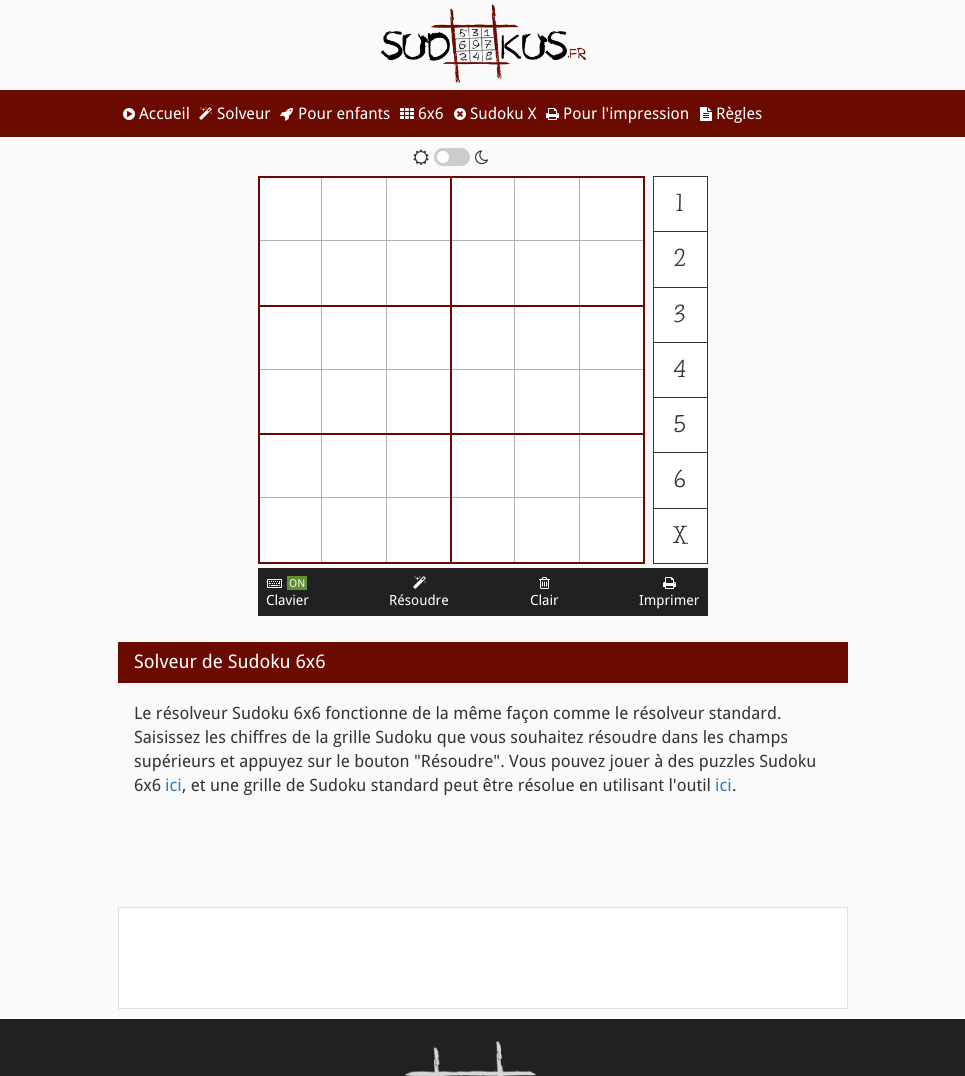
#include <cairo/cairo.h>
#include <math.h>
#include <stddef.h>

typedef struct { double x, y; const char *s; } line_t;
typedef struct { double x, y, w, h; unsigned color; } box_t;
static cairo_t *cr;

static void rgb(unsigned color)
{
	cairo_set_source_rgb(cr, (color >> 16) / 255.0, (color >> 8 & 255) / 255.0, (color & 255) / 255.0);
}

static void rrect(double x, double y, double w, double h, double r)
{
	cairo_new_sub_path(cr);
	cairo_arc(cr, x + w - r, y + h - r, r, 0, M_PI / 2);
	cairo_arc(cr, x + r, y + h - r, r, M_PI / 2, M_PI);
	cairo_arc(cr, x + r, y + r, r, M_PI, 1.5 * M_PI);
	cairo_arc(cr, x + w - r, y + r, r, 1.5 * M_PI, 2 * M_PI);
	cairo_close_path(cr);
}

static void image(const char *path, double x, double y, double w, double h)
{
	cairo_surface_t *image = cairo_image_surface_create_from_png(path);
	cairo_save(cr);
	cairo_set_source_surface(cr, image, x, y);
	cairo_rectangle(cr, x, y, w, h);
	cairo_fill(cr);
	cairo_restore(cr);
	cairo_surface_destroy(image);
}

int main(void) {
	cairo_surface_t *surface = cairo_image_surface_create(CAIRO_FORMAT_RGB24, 965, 1076);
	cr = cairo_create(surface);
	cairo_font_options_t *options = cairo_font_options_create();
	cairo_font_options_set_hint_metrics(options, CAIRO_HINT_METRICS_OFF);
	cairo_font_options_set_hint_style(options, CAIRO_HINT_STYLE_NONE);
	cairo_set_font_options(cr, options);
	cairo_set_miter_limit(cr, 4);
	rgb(0xfafafa);
	cairo_paint(cr);
	image("img/1.png", 380, 4, 206, 79);
	rgb(0x6b0a00);
	cairo_rectangle(cr, 0, 90, 965, 47);
	cairo_fill(cr);
	image("img/2.png", 123, 108, 12, 12);
	image("img/3.png", 199, 107, 13, 13);
	image("img/4.png", 280, 108, 13, 13);
	image("img/5.png", 400, 108, 14, 11);
	image("img/6.png", 454, 108, 12, 12);
	image("img/7.png", 546, 108, 13, 12);
	image("img/8.png", 700, 107, 12, 14);
	image("img/9.png", 413, 149, 16, 17);
	rgb(0xcccccc);
	rrect(434, 148, 36, 18, 9);
	cairo_fill(cr);
	rgb(0xffffff);
	cairo_arc(cr, 443, 157, 6, 0, 2 * M_PI);
	cairo_fill(cr);
	image("img/10.png", 475, 150, 14, 15);
	{
		static const box_t items[] = {
			{260, 178, 383, 384, 0xffffff},
			{258, 176, 387, 1, 0x6b0a00},
			{644, 176, 1, 388, 0x6b0a00},
			{258, 563, 387, 1, 0x6b0a00},
			{258, 176, 1, 388, 0x6b0a00},
			{321, 177, 1, 386, 0xb3b2ae},
			{259, 240, 63, 1, 0xb3b2ae},
			{386, 177, 1, 386, 0xb3b2ae},
			{514, 177, 1, 386, 0xb3b2ae},
			{579, 177, 1, 386, 0xb3b2ae},
			{259, 177, 385, 1, 0x6b0a00},
			{259, 177, 1, 64, 0x6b0a00},
			{322, 240, 129, 1, 0xb3b2ae},
			{451, 240, 64, 1, 0xb3b2ae},
			{450, 177, 2, 64, 0x6b0a00},
			{515, 240, 129, 1, 0xb3b2ae},
			{643, 177, 1, 129, 0x6b0a00},
			{259, 305, 128, 1, 0x6b0a00},
			{259, 241, 1, 65, 0x6b0a00},
			{450, 241, 1, 65, 0x6b0a00},
			{387, 305, 257, 1, 0x6b0a00},
			{451, 241, 1, 65, 0x6b0a00},
			{259, 306, 385, 1, 0x6b0a00},
			{259, 369, 385, 1, 0xb3b2ae},
			{259, 306, 1, 64, 0x6b0a00},
			{450, 306, 2, 64, 0x6b0a00},
			{643, 306, 1, 128, 0x6b0a00},
			{259, 433, 128, 1, 0x6b0a00},
			{259, 370, 1, 64, 0x6b0a00},
			{450, 370, 1, 64, 0x6b0a00},
			{387, 433, 257, 1, 0x6b0a00},
			{451, 370, 1, 64, 0x6b0a00},
			{259, 434, 385, 1, 0x6b0a00},
			{259, 497, 385, 1, 0xb3b2ae},
			{259, 434, 1, 64, 0x6b0a00},
			{450, 434, 2, 64, 0x6b0a00},
			{643, 434, 1, 129, 0x6b0a00},
			{259, 562, 128, 1, 0x6b0a00},
			{259, 498, 1, 65, 0x6b0a00},
			{450, 498, 1, 65, 0x6b0a00},
			{387, 562, 257, 1, 0x6b0a00},
			{451, 498, 1, 65, 0x6b0a00},
			{653, 176, 55, 1, 0x333333},
			{653, 176, 1, 388, 0x333333},
			{707, 177, 1, 387, 0x333333},
			{654, 231, 54, 1, 0x333333},
			{654, 177, 53, 54, 0xffffff},
			{654, 287, 54, 1, 0x333333},
			{654, 232, 53, 55, 0xffffff},
			{654, 342, 54, 1, 0x333333},
			{654, 288, 53, 54, 0xffffff},
			{654, 397, 54, 1, 0x333333},
			{654, 343, 53, 54, 0xffffff},
			{654, 452, 54, 1, 0x333333},
			{654, 398, 53, 54, 0xffffff},
			{654, 508, 54, 1, 0x333333},
			{654, 453, 53, 55, 0xffffff},
			{654, 563, 54, 1, 0x333333},
			{654, 509, 53, 54, 0xffffff},
			{258, 568, 450, 48, 0x212121},
		};
		for (size_t i = 0; i < sizeof items / sizeof *items; i++) {
			rgb(items[i].color);
			cairo_rectangle(cr, items[i].x, items[i].y, items[i].w, items[i].h);
			cairo_fill(cr);
		}
	}
	image("img/11.png", 267, 579, 15, 9);
	rgb(0x5d9133);
	cairo_rectangle(cr, 287, 576, 20, 14);
	cairo_fill(cr);
	image("img/12.png", 413, 576, 13, 13);
	image("img/13.png", 539, 577, 11, 12);
	image("img/14.png", 663, 577, 13, 12);
	rgb(0x6b0a00);
	cairo_rectangle(cr, 118, 642, 730, 41);
	cairo_fill(cr);
	rgb(0xffffff);
	cairo_rectangle(cr, 118.5, 907.5, 729, 101);
	cairo_fill_preserve(cr);
	rgb(0xe3e2e3);
	cairo_set_line_width(cr, 1);
	cairo_stroke(cr);
	rgb(0x212121);
	cairo_rectangle(cr, 0, 1019, 965, 57);
	cairo_fill(cr);
	image("img/15.png", 405, 1041, 132, 35);
	cairo_select_font_face(cr, "Droid Sans", CAIRO_FONT_SLANT_NORMAL, CAIRO_FONT_WEIGHT_NORMAL);
	cairo_set_font_size(cr, 16);
	rgb(0xffffff);
	{
		static const line_t items[] = {
			{139, 119, "Accueil"},
			{217, 119, "Solveur"},
			{298, 119, "Pour enfants"},
			{418, 119, "6x6"},
			{470, 119, "Sudoku X"},
			{563, 119, "Pour l'impression"},
			{716, 119, "Règles"},
		};
		for (size_t i = 0; i < sizeof items / sizeof *items; i++) {
			cairo_move_to(cr, items[i].x, items[i].y);
			cairo_show_text(cr, items[i].s);
		}
	}
	cairo_select_font_face(cr, "Life Savers", CAIRO_FONT_SLANT_NORMAL, CAIRO_FONT_WEIGHT_BOLD);
	cairo_set_font_size(cr, 21);
	rgb(0x333333);
	{
		static const line_t items[] = {
			{676, 211, "1"},
			{674, 266, "2"},
			{674, 322, "3"},
			{674, 377, "4"},
			{674, 432, "5"},
			{674, 487, "6"},
			{673, 543, "X"},
		};
		for (size_t i = 0; i < sizeof items / sizeof *items; i++) {
			cairo_move_to(cr, items[i].x, items[i].y);
			cairo_show_text(cr, items[i].s);
		}
	}
	cairo_select_font_face(cr, "Droid Sans", CAIRO_FONT_SLANT_NORMAL, CAIRO_FONT_WEIGHT_NORMAL);
	cairo_set_font_size(cr, 11);
	rgb(0xf4efec);
	cairo_move_to(cr, 289, 587);
	cairo_show_text(cr, "ON");
	cairo_set_font_size(cr, 14);
	rgb(0xffffff);
	{
		static const line_t items[] = {
			{266, 605, "Clavier"},
			{389, 605, "Résoudre"},
			{530, 605, "Clair"},
			{639, 605, "Imprimer"},
		};
		for (size_t i = 0; i < sizeof items / sizeof *items; i++) {
			cairo_move_to(cr, items[i].x, items[i].y);
			cairo_show_text(cr, items[i].s);
		}
	}
	cairo_set_font_size(cr, 18.75);
	cairo_move_to(cr, 134, 668);
	cairo_show_text(cr, "Solveur de Sudoku 6x6");
	cairo_set_font_size(cr, 17);
	rgb(0x333333);
	{
		static const line_t items[] = {
			{134, 719, "Le résolveur Sudoku 6x6 fonctionne de la même façon comme le résolveur standard."},
			{134, 743, "Saisissez les chiffres de la grille Sudoku que vous souhaitez résoudre dans les champs"},
			{134, 767, "supérieurs et appuyez sur le bouton \"Résoudre\". Vous pouvez jouer à des puzzles Sudoku"},
			{134, 791, "6x6"},
		};
		for (size_t i = 0; i < sizeof items / sizeof *items; i++) {
			cairo_move_to(cr, items[i].x, items[i].y);
			cairo_show_text(cr, items[i].s);
		}
	}
	rgb(0x337ab7);
	cairo_move_to(cr, 165, 791);
	cairo_show_text(cr, "ici");
	rgb(0x333333);
	cairo_move_to(cr, 182, 791);
	cairo_show_text(cr, ", et une grille de Sudoku standard peut être résolue en utilisant l'outil");
	rgb(0x337ab7);
	cairo_move_to(cr, 715, 791);
	cairo_show_text(cr, "ici");
	rgb(0x333333);
	cairo_move_to(cr, 732, 791);
	cairo_show_text(cr, ".");
	cairo_surface_write_to_png(surface, "page.png");
	cairo_font_options_destroy(options);
	cairo_destroy(cr);
	cairo_surface_destroy(surface);
	return 0;
}
